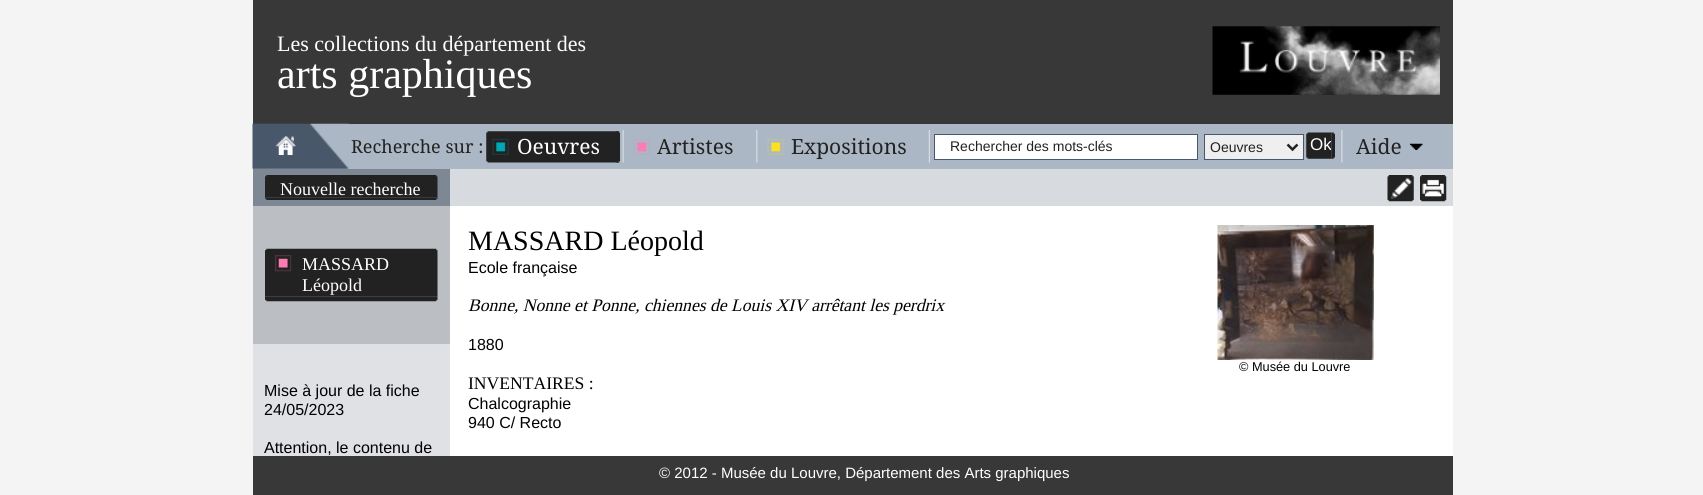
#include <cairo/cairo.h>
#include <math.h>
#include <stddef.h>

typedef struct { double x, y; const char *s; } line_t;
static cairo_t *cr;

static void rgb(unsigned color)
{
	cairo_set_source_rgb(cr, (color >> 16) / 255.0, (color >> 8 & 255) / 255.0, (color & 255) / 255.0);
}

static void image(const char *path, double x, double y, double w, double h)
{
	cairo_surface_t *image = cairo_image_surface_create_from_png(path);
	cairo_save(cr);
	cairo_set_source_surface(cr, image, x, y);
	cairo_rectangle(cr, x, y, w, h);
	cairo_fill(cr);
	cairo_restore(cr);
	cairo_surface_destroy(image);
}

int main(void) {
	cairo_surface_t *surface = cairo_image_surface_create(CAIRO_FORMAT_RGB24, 1703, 495);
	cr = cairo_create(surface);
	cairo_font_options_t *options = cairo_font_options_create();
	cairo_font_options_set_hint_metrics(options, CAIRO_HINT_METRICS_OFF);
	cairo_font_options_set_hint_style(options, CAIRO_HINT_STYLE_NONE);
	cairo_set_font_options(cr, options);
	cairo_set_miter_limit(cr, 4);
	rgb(0xf4f4f4);
	cairo_paint(cr);
	rgb(0xffffff);
	cairo_rectangle(cr, 450, 206, 1003, 250);
	cairo_fill(cr);
	rgb(0x383838);
	cairo_rectangle(cr, 253, 0, 1200, 124);
	cairo_fill(cr);
	image("img/1.png", 1212, 26, 228, 69);
	rgb(0xabb7c4);
	cairo_rectangle(cr, 253, 124, 1200, 45);
	cairo_fill(cr);
	image("img/2.png", 252, 123, 97, 46);
	image("img/3.png", 275, 135, 22, 20);
	image("img/4.png", 622, 130, 2, 33);
	image("img/5.png", 486, 131, 134, 32);
	image("img/6.png", 616, 131, 4, 32);
	image("img/7.png", 492, 138, 17, 17);
	image("img/8.png", 756, 130, 2, 33);
	image("img/9.png", 634, 139, 16, 16);
	image("img/10.png", 928, 130, 2, 33);
	image("img/11.png", 767, 138, 17, 17);
	rgb(0xffffff);
	cairo_rectangle(cr, 934.5, 134.5, 263, 25);
	cairo_fill_preserve(cr);
	rgb(0x485769);
	cairo_set_line_width(cr, 1);
	cairo_stroke(cr);
	rgb(0xefefef);
	cairo_rectangle(cr, 1204.5, 134.5, 99, 25);
	cairo_fill_preserve(cr);
	rgb(0x485769);
	cairo_stroke(cr);
	cairo_new_path(cr);
	cairo_move_to(cr, 1287.5, 144.5);
	cairo_line_to(cr, 1292.5, 149.5);
	cairo_line_to(cr, 1297.5, 144.5);
	rgb(0x222222);
	cairo_set_line_width(cr, 2.5);
	cairo_stroke(cr);
	image("img/12.png", 1306, 132, 26, 27);
	image("img/8.png", 1341, 130, 2, 33);
	image("img/14.png", 1410, 143, 13, 7);
	rgb(0xdfe1e4);
	cairo_rectangle(cr, 253, 344, 197, 112);
	cairo_fill(cr);
	rgb(0x7d8894);
	cairo_rectangle(cr, 253, 169, 197, 37);
	cairo_fill(cr);
	image("img/15.png", 265, 175, 173, 23);
	image("img/16.png", 265, 197, 173, 3);
	rgb(0xbbbfc4);
	cairo_rectangle(cr, 253, 206, 197, 138);
	cairo_fill(cr);
	image("img/17.png", 265, 248, 173, 49);
	image("img/18.png", 275, 255, 17, 17);
	image("img/19.png", 265, 296, 173, 6);
	rgb(0xd7dbdf);
	cairo_rectangle(cr, 450, 169, 1003, 37);
	cairo_fill(cr);
	image("img/20.png", 1387, 175, 27, 27);
	image("img/21.png", 1420, 175, 27, 27);
	image("img/22.png", 1217, 225, 157, 135);
	rgb(0x383838);
	cairo_rectangle(cr, 253, 456, 1200, 39);
	cairo_fill(cr);
	cairo_select_font_face(cr, "Tinos", CAIRO_FONT_SLANT_NORMAL, CAIRO_FONT_WEIGHT_NORMAL);
	cairo_set_font_size(cr, 22);
	rgb(0xffffff);
	cairo_move_to(cr, 277, 51);
	cairo_show_text(cr, "Les collections du département des");
	cairo_set_font_size(cr, 42);
	cairo_move_to(cr, 277, 88);
	cairo_show_text(cr, "arts graphiques");
	cairo_select_font_face(cr, "Droid Serif", CAIRO_FONT_SLANT_NORMAL, CAIRO_FONT_WEIGHT_NORMAL);
	cairo_set_font_size(cr, 18);
	rgb(0x222222);
	cairo_move_to(cr, 351, 153);
	cairo_show_text(cr, "Recherche sur :");
	cairo_set_font_size(cr, 21);
	rgb(0xffffff);
	cairo_move_to(cr, 517, 154);
	cairo_show_text(cr, "Oeuvres");
	rgb(0x222222);
	cairo_move_to(cr, 657, 154);
	cairo_show_text(cr, "Artistes");
	cairo_move_to(cr, 791, 154);
	cairo_show_text(cr, "Expositions");
	cairo_select_font_face(cr, "Liberation Sans", CAIRO_FONT_SLANT_NORMAL, CAIRO_FONT_WEIGHT_NORMAL);
	cairo_set_font_size(cr, 14);
	cairo_move_to(cr, 950, 151);
	cairo_show_text(cr, "Rechercher des mots-clés");
	cairo_move_to(cr, 1210, 152);
	cairo_show_text(cr, "Oeuvres");
	cairo_set_font_size(cr, 17);
	rgb(0xffffff);
	cairo_move_to(cr, 1310, 150);
	cairo_show_text(cr, "Ok");
	image("img/13.png", 1331, 132, 4, 27);
	cairo_select_font_face(cr, "Droid Serif", CAIRO_FONT_SLANT_NORMAL, CAIRO_FONT_WEIGHT_NORMAL);
	cairo_set_font_size(cr, 21);
	rgb(0x222222);
	cairo_move_to(cr, 1356, 154);
	cairo_show_text(cr, "Aide");
	cairo_select_font_face(cr, "Tinos", CAIRO_FONT_SLANT_NORMAL, CAIRO_FONT_WEIGHT_NORMAL);
	cairo_set_font_size(cr, 18);
	rgb(0xffffff);
	{
		static const line_t items[] = {
			{280, 195, "Nouvelle recherche"},
			{302, 270, "MASSARD"},
			{302, 291, "Léopold"},
		};
		for (size_t i = 0; i < sizeof items / sizeof *items; i++) {
			cairo_move_to(cr, items[i].x, items[i].y);
			cairo_show_text(cr, items[i].s);
		}
	}
	cairo_select_font_face(cr, "Liberation Sans", CAIRO_FONT_SLANT_NORMAL, CAIRO_FONT_WEIGHT_NORMAL);
	cairo_set_font_size(cr, 16);
	rgb(0x000000);
	{
		static const line_t items[] = {
			{264, 396, "Mise à jour de la fiche"},
			{264, 415, "24/05/2023"},
			{264, 453, "Attention, le contenu de"},
		};
		for (size_t i = 0; i < sizeof items / sizeof *items; i++) {
			cairo_move_to(cr, items[i].x, items[i].y);
			cairo_show_text(cr, items[i].s);
		}
	}
	cairo_select_font_face(cr, "Tinos", CAIRO_FONT_SLANT_NORMAL, CAIRO_FONT_WEIGHT_NORMAL);
	cairo_set_font_size(cr, 28);
	cairo_move_to(cr, 468, 250);
	cairo_show_text(cr, "MASSARD Léopold");
	cairo_select_font_face(cr, "Liberation Sans", CAIRO_FONT_SLANT_NORMAL, CAIRO_FONT_WEIGHT_NORMAL);
	cairo_set_font_size(cr, 16);
	cairo_move_to(cr, 468, 273);
	cairo_show_text(cr, "Ecole française");
	cairo_select_font_face(cr, "Tinos", CAIRO_FONT_SLANT_ITALIC, CAIRO_FONT_WEIGHT_NORMAL);
	cairo_set_font_size(cr, 17.6);
	cairo_move_to(cr, 468, 311);
	cairo_show_text(cr, "Bonne, Nonne et Ponne, chiennes de Louis XIV arrêtant les perdrix");
	cairo_select_font_face(cr, "Liberation Sans", CAIRO_FONT_SLANT_NORMAL, CAIRO_FONT_WEIGHT_NORMAL);
	cairo_set_font_size(cr, 16);
	cairo_move_to(cr, 468, 350);
	cairo_show_text(cr, "1880");
	cairo_set_font_size(cr, 12.75);
	cairo_move_to(cr, 1239, 371);
	cairo_show_text(cr, "© Musée du Louvre");
	cairo_select_font_face(cr, "Tinos", CAIRO_FONT_SLANT_NORMAL, CAIRO_FONT_WEIGHT_NORMAL);
	cairo_set_font_size(cr, 17.6);
	cairo_move_to(cr, 468, 389);
	cairo_show_text(cr, "INVENTAIRES :");
	cairo_select_font_face(cr, "Liberation Sans", CAIRO_FONT_SLANT_NORMAL, CAIRO_FONT_WEIGHT_NORMAL);
	cairo_set_font_size(cr, 16);
	cairo_move_to(cr, 468, 409);
	cairo_show_text(cr, "Chalcographie");
	cairo_move_to(cr, 468, 428);
	cairo_show_text(cr, "940 C/ Recto");
	cairo_set_font_size(cr, 15);
	rgb(0xffffff);
	cairo_move_to(cr, 659, 478);
	cairo_show_text(cr, "© 2012 - Musée du Louvre, Département des Arts graphiques");
	cairo_surface_write_to_png(surface, "page.png");
	cairo_font_options_destroy(options);
	cairo_destroy(cr);
	cairo_surface_destroy(surface);
	return 0;
}
